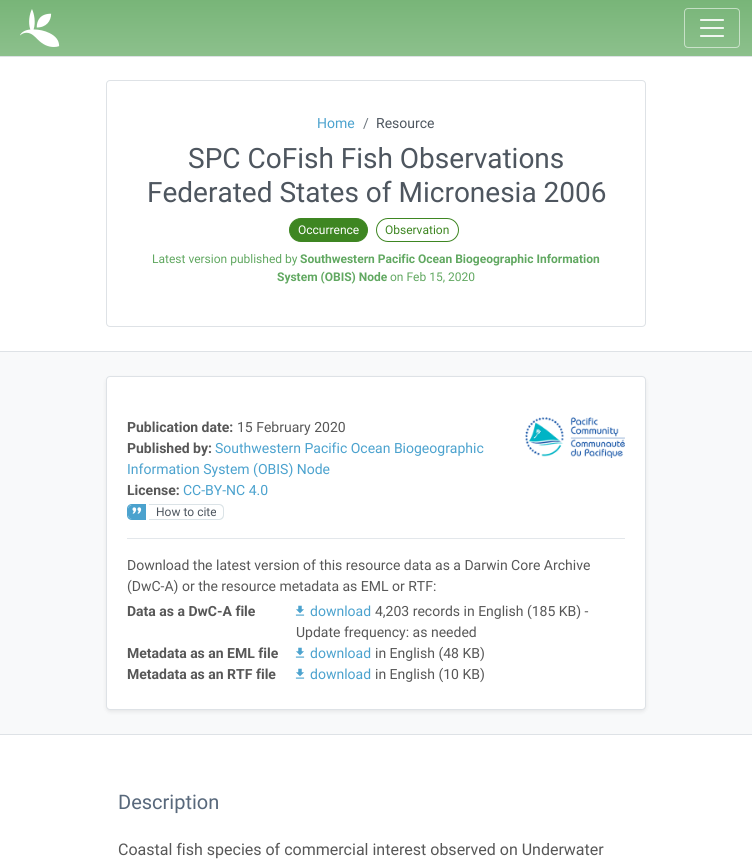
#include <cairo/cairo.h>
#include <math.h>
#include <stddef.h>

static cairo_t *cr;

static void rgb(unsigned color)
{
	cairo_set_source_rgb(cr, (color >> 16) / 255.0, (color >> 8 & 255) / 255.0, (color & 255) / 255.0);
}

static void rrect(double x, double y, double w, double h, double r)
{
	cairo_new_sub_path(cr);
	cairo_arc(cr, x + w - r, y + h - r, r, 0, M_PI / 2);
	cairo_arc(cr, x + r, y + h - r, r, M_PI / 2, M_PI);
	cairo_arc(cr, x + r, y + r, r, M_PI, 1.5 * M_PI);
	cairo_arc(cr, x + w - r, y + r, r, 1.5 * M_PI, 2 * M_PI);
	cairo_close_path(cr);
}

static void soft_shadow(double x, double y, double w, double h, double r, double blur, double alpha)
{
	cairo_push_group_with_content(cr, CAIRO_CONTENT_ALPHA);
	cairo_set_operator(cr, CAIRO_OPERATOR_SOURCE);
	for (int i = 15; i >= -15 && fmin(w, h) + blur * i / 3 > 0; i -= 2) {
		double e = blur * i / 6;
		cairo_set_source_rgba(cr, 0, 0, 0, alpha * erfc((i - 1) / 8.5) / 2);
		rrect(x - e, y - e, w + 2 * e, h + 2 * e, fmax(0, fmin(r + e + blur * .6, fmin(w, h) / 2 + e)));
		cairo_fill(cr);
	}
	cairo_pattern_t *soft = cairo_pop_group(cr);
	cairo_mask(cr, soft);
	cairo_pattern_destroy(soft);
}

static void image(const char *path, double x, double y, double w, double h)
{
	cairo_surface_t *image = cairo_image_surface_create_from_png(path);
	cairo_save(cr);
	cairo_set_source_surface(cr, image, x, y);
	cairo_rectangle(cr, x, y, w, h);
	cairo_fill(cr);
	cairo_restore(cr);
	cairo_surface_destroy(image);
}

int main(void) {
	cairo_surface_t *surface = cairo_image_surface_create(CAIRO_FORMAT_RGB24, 752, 859);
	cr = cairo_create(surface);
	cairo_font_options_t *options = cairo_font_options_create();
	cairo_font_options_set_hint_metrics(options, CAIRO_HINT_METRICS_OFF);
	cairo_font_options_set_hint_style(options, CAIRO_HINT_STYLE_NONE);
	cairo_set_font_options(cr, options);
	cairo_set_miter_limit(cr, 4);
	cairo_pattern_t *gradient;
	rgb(0xffffff);
	cairo_paint(cr);
	gradient = cairo_pattern_create_linear(376, 0, 376, 56);
	cairo_pattern_add_color_stop_rgba(gradient, 0, 0.471, 0.71, 0.471, 1);
	cairo_pattern_add_color_stop_rgba(gradient, 1, 0.549, 0.753, 0.549, 1);
	cairo_set_source(cr, gradient);
	cairo_pattern_destroy(gradient);
	cairo_rectangle(cr, 0, 0, 752, 56);
	cairo_fill(cr);
	rgb(0xdee2e6);
	cairo_rectangle(cr, 0, 56, 752, 1);
	cairo_fill(cr);
	image("img/1.png", 20, 9, 40, 38);
	rrect(684.5, 8.5, 55, 39, 3.5);
	cairo_set_source_rgba(cr, 1, 1, 1, 0.55);
	cairo_set_line_width(cr, 1);
	cairo_stroke(cr);
	image("img/2.png", 700, 19, 24, 18);
	image("img/3.png", 700, 19, 24, 18);
	rgb(0xdee2e6);
	cairo_rectangle(cr, 0, 351, 752, 1);
	cairo_fill(cr);
	rrect(106.5, 80.5, 539, 246, 3.5);
	cairo_stroke(cr);
	rgb(0x3e8622);
	rrect(289.5, 218.5, 78, 23, 11.5);
	cairo_fill_preserve(cr);
	cairo_stroke(cr);
	rrect(376.5, 218.5, 82, 23, 11.5);
	cairo_stroke(cr);
	rgb(0xf8f9fa);
	cairo_rectangle(cr, 0, 352, 752, 382);
	cairo_fill(cr);
	rgb(0xdee2e6);
	cairo_rectangle(cr, 0, 734, 752, 1);
	cairo_fill(cr);
	rgb(0x000000);
	soft_shadow(106, 378, 540, 334, 4, 2, 0.07);
	rgb(0xffffff);
	rrect(106.5, 376.5, 539, 333, 3.5);
	cairo_fill_preserve(cr);
	rgb(0xdee2e6);
	cairo_stroke(cr);
	rgb(0x4ba2ce);
	cairo_new_path(cr);
	cairo_move_to(cr, 132, 505);
	cairo_line_to(cr, 146, 505);
	cairo_line_to(cr, 146, 519);
	cairo_line_to(cr, 132, 519);
	cairo_curve_to(cr, 130, 519, 128, 517, 128, 515);
	cairo_line_to(cr, 128, 509);
	cairo_curve_to(cr, 128, 507, 130, 505, 132, 505);
	cairo_close_path(cr);
	cairo_fill(cr);
	cairo_set_fill_rule(cr, CAIRO_FILL_RULE_EVEN_ODD);
	cairo_new_path(cr);
	cairo_move_to(cr, 132, 504);
	cairo_line_to(cr, 146, 504);
	cairo_line_to(cr, 146, 520);
	cairo_line_to(cr, 132, 520);
	cairo_curve_to(cr, 129, 520, 127, 518, 127, 515);
	cairo_line_to(cr, 127, 509);
	cairo_curve_to(cr, 127, 506, 129, 504, 132, 504);
	cairo_close_path(cr);
	cairo_move_to(cr, 132, 505);
	cairo_line_to(cr, 146, 505);
	cairo_line_to(cr, 146, 519);
	cairo_line_to(cr, 134.5, 519);
	cairo_curve_to(cr, 127, 519, 128, 516, 128, 510);
	cairo_curve_to(cr, 128, 507.5, 129, 505, 132, 505);
	cairo_close_path(cr);
	cairo_fill(cr);
	image("img/4.png", 132, 507, 10, 7);
	rgb(0xdbe3e7);
	cairo_new_path(cr);
	cairo_move_to(cr, 149, 504);
	cairo_line_to(cr, 219, 504);
	cairo_curve_to(cr, 222, 504, 224, 506, 224, 509);
	cairo_line_to(cr, 224, 515);
	cairo_curve_to(cr, 224, 518, 222, 520, 219, 520);
	cairo_line_to(cr, 149, 520);
	cairo_close_path(cr);
	cairo_move_to(cr, 149, 505);
	cairo_line_to(cr, 219, 505);
	cairo_curve_to(cr, 221, 505, 223, 507, 223, 509);
	cairo_line_to(cr, 223, 515);
	cairo_curve_to(cr, 223, 517, 221, 519, 219, 519);
	cairo_line_to(cr, 149, 519);
	cairo_close_path(cr);
	cairo_fill(cr);
	image("img/5.png", 525, 417, 100, 41);
	rgb(0xe3e7eb);
	cairo_rectangle(cr, 127, 538, 498, 1);
	cairo_fill(cr);
	image("img/6.png", 295, 605, 10, 11);
	image("img/6.png", 295, 647, 10, 11);
	image("img/6.png", 295, 668, 10, 11);
	cairo_select_font_face(cr, "Roboto", CAIRO_FONT_SLANT_NORMAL, CAIRO_FONT_WEIGHT_NORMAL);
	cairo_set_font_size(cr, 14);
	rgb(0x4ba2ce);
	cairo_move_to(cr, 317, 128);
	cairo_show_text(cr, "Home");
	rgb(0x6c757d);
	cairo_move_to(cr, 363, 128);
	cairo_show_text(cr, "/");
	rgb(0x4e565f);
	cairo_move_to(cr, 376, 128);
	cairo_show_text(cr, "Resource");
	cairo_set_font_size(cr, 28);
	cairo_move_to(cr, 188, 168);
	cairo_show_text(cr, "SPC CoFish Fish Observations");
	cairo_move_to(cr, 147, 202);
	cairo_show_text(cr, "Federated States of Micronesia 2006");
	cairo_set_font_size(cr, 12);
	rgb(0xffffff);
	cairo_move_to(cr, 298, 234);
	cairo_show_text(cr, "Occurrence");
	rgb(0x3e8622);
	cairo_move_to(cr, 385, 234);
	cairo_show_text(cr, "Observation");
	rgb(0x61a861);
	cairo_move_to(cr, 152, 263);
	cairo_show_text(cr, "Latest version published by");
	cairo_select_font_face(cr, "Roboto", CAIRO_FONT_SLANT_NORMAL, CAIRO_FONT_WEIGHT_BOLD);
	cairo_move_to(cr, 300, 263);
	cairo_show_text(cr, "Southwestern Pacific Ocean Biogeographic Information");
	cairo_move_to(cr, 277, 281);
	cairo_show_text(cr, "System (OBIS) Node");
	cairo_select_font_face(cr, "Roboto", CAIRO_FONT_SLANT_NORMAL, CAIRO_FONT_WEIGHT_NORMAL);
	cairo_move_to(cr, 390, 281);
	cairo_show_text(cr, "on Feb 15, 2020");
	cairo_select_font_face(cr, "Roboto", CAIRO_FONT_SLANT_NORMAL, CAIRO_FONT_WEIGHT_BOLD);
	cairo_set_font_size(cr, 14);
	rgb(0x575757);
	cairo_move_to(cr, 127, 432);
	cairo_show_text(cr, "Publication date:");
	cairo_select_font_face(cr, "Roboto", CAIRO_FONT_SLANT_NORMAL, CAIRO_FONT_WEIGHT_NORMAL);
	cairo_move_to(cr, 237, 432);
	cairo_show_text(cr, "15 February 2020");
	cairo_select_font_face(cr, "Roboto", CAIRO_FONT_SLANT_NORMAL, CAIRO_FONT_WEIGHT_BOLD);
	cairo_move_to(cr, 127, 453);
	cairo_show_text(cr, "Published by:");
	cairo_select_font_face(cr, "Roboto", CAIRO_FONT_SLANT_NORMAL, CAIRO_FONT_WEIGHT_NORMAL);
	rgb(0x4ba2ce);
	cairo_move_to(cr, 215, 453);
	cairo_show_text(cr, "Southwestern Pacific Ocean Biogeographic");
	cairo_move_to(cr, 127, 474);
	cairo_show_text(cr, "Information System (OBIS) Node");
	cairo_select_font_face(cr, "Roboto", CAIRO_FONT_SLANT_NORMAL, CAIRO_FONT_WEIGHT_BOLD);
	rgb(0x575757);
	cairo_move_to(cr, 127, 495);
	cairo_show_text(cr, "License:");
	cairo_select_font_face(cr, "Roboto", CAIRO_FONT_SLANT_NORMAL, CAIRO_FONT_WEIGHT_NORMAL);
	rgb(0x4ba2ce);
	cairo_move_to(cr, 183, 495);
	cairo_show_text(cr, "CC-BY-NC 4.0");
	cairo_set_font_size(cr, 12);
	rgb(0x4e565f);
	cairo_move_to(cr, 156, 516);
	cairo_show_text(cr, "How to cite");
	cairo_set_font_size(cr, 14);
	rgb(0x575757);
	cairo_move_to(cr, 127, 570);
	cairo_show_text(cr, "Download the latest version of this resource data as a Darwin Core Archive");
	cairo_move_to(cr, 127, 591);
	cairo_show_text(cr, "(DwC-A) or the resource metadata as EML or RTF:");
	cairo_select_font_face(cr, "Roboto", CAIRO_FONT_SLANT_NORMAL, CAIRO_FONT_WEIGHT_BOLD);
	cairo_move_to(cr, 127, 616);
	cairo_show_text(cr, "Data as a DwC-A file");
	cairo_select_font_face(cr, "Roboto", CAIRO_FONT_SLANT_NORMAL, CAIRO_FONT_WEIGHT_NORMAL);
	rgb(0x4ba2ce);
	cairo_move_to(cr, 310, 616);
	cairo_show_text(cr, "download");
	rgb(0x575757);
	cairo_move_to(cr, 375, 616);
	cairo_show_text(cr, "4,203 records in English (185 KB) -");
	cairo_move_to(cr, 296, 637);
	cairo_show_text(cr, "Update frequency: as needed");
	cairo_select_font_face(cr, "Roboto", CAIRO_FONT_SLANT_NORMAL, CAIRO_FONT_WEIGHT_BOLD);
	cairo_move_to(cr, 127, 658);
	cairo_show_text(cr, "Metadata as an EML file");
	cairo_select_font_face(cr, "Roboto", CAIRO_FONT_SLANT_NORMAL, CAIRO_FONT_WEIGHT_NORMAL);
	rgb(0x4ba2ce);
	cairo_move_to(cr, 310, 658);
	cairo_show_text(cr, "download");
	rgb(0x575757);
	cairo_move_to(cr, 375, 658);
	cairo_show_text(cr, "in English (48 KB)");
	cairo_select_font_face(cr, "Roboto", CAIRO_FONT_SLANT_NORMAL, CAIRO_FONT_WEIGHT_BOLD);
	cairo_move_to(cr, 127, 679);
	cairo_show_text(cr, "Metadata as an RTF file");
	cairo_select_font_face(cr, "Roboto", CAIRO_FONT_SLANT_NORMAL, CAIRO_FONT_WEIGHT_NORMAL);
	rgb(0x4ba2ce);
	cairo_move_to(cr, 310, 679);
	cairo_show_text(cr, "download");
	rgb(0x575757);
	cairo_move_to(cr, 375, 679);
	cairo_show_text(cr, "in English (10 KB)");
	cairo_set_font_size(cr, 20);
	rgb(0x58687b);
	cairo_move_to(cr, 118, 809);
	cairo_show_text(cr, "Description");
	cairo_set_font_size(cr, 16);
	rgb(0x575757);
	cairo_move_to(cr, 118, 855);
	cairo_show_text(cr, "Coastal fish species of commercial interest observed on Underwater");
	cairo_surface_write_to_png(surface, "page.png");
	cairo_font_options_destroy(options);
	cairo_destroy(cr);
	cairo_surface_destroy(surface);
	return 0;
}
